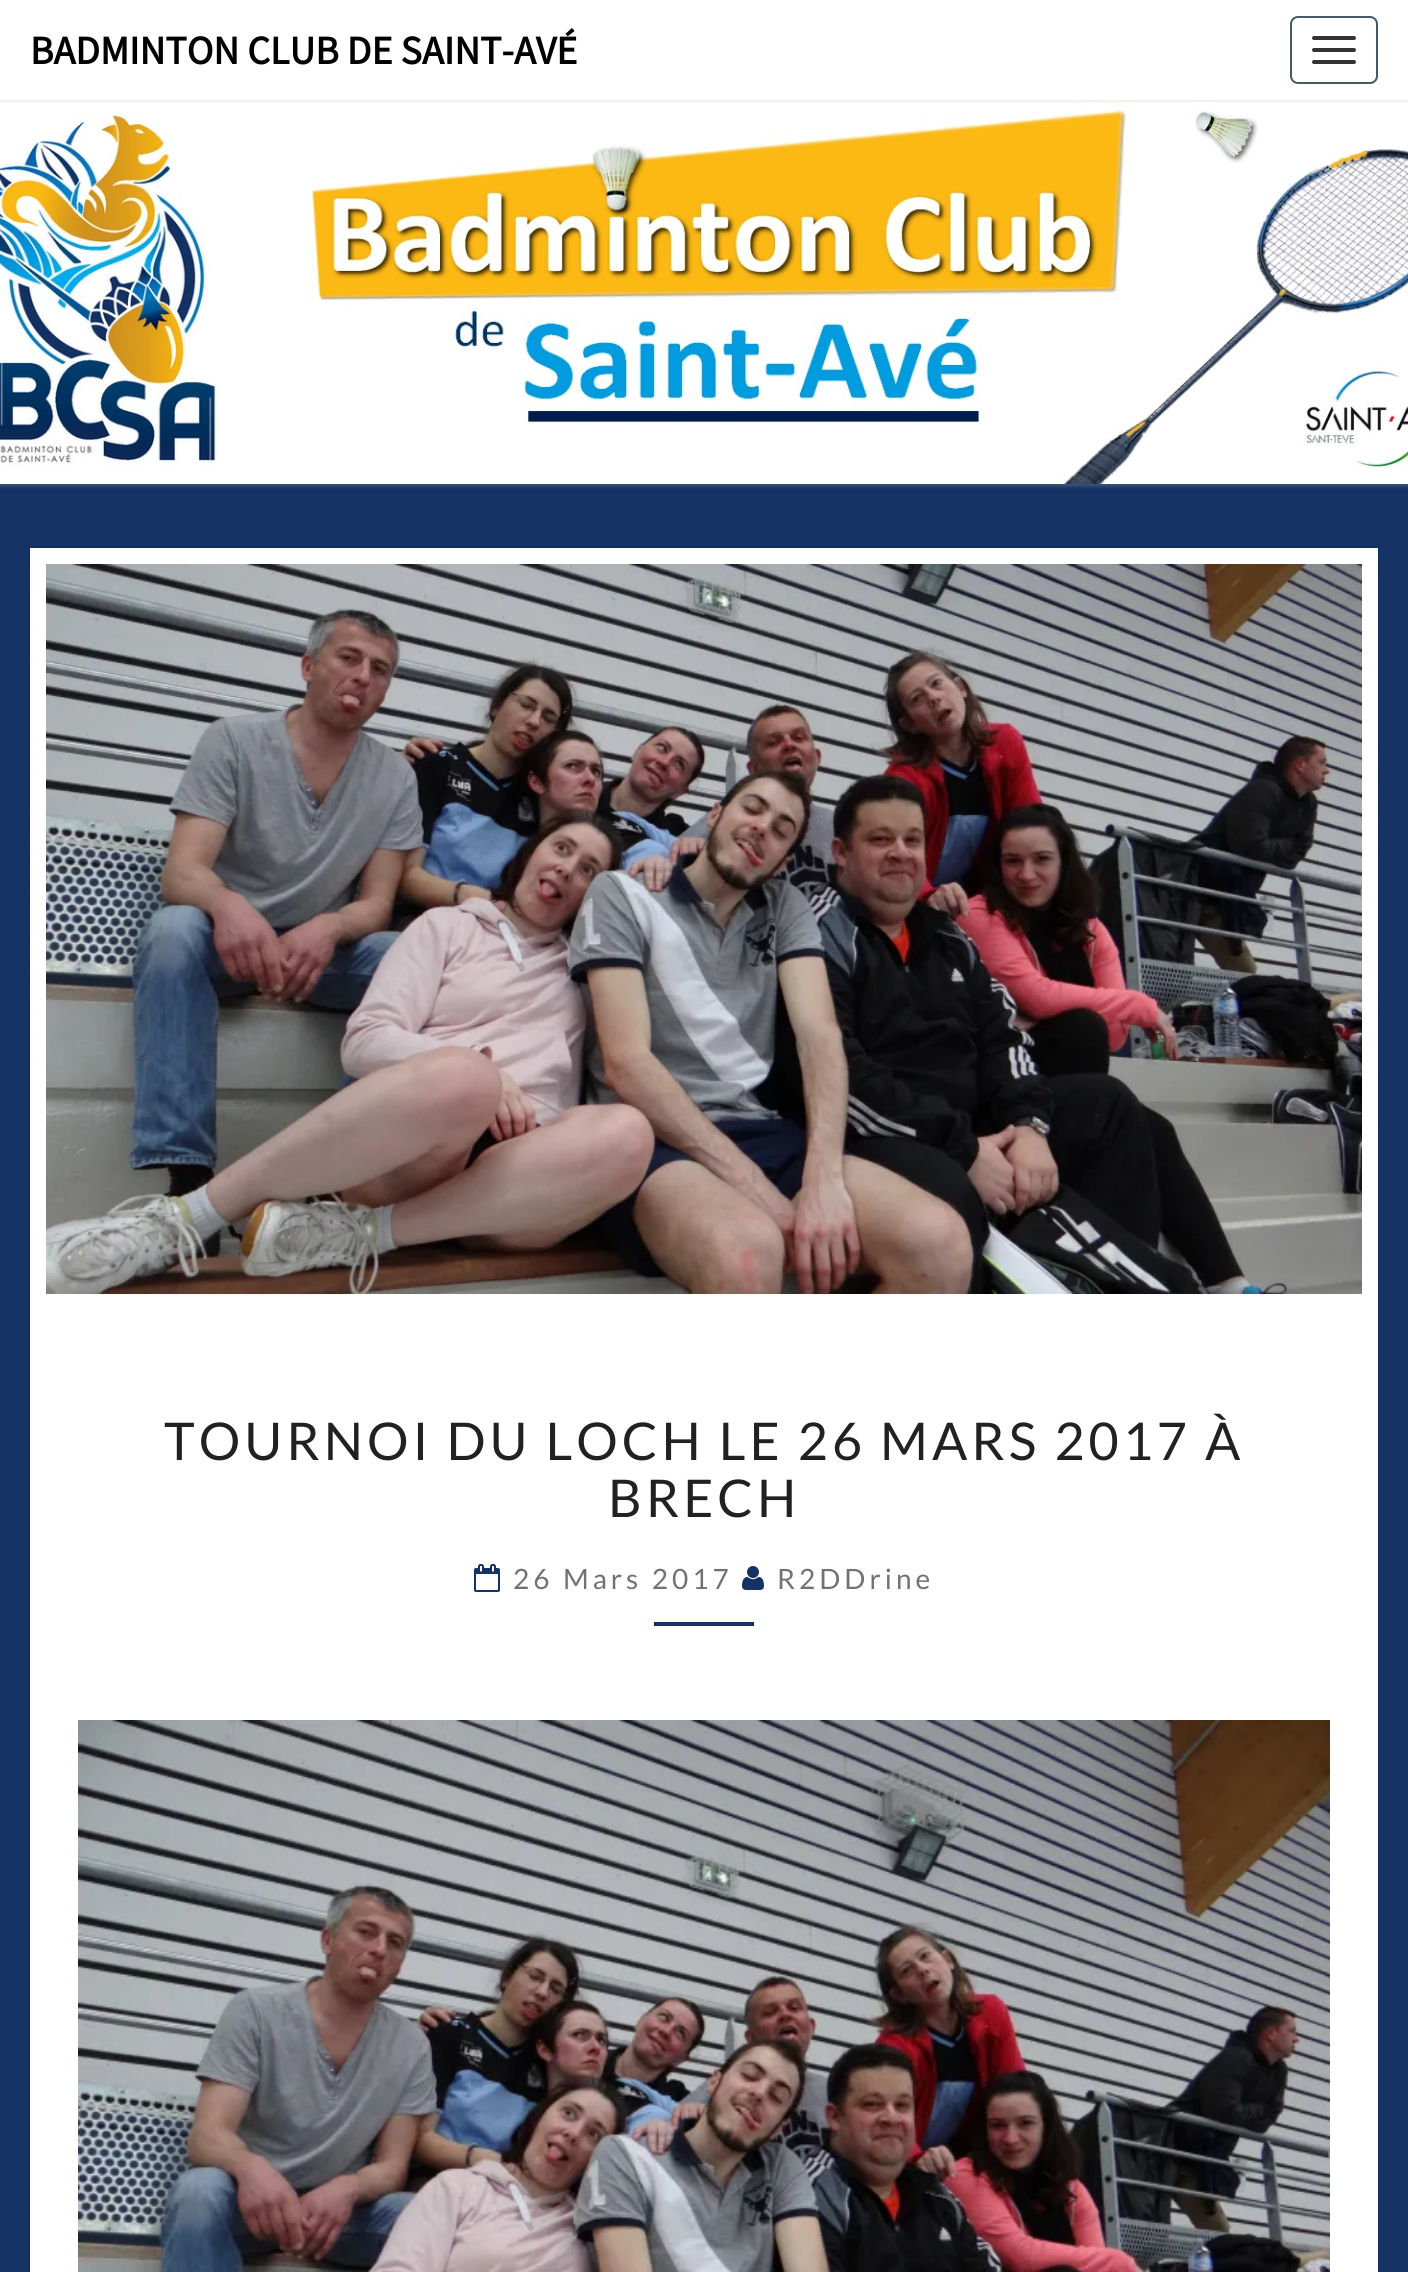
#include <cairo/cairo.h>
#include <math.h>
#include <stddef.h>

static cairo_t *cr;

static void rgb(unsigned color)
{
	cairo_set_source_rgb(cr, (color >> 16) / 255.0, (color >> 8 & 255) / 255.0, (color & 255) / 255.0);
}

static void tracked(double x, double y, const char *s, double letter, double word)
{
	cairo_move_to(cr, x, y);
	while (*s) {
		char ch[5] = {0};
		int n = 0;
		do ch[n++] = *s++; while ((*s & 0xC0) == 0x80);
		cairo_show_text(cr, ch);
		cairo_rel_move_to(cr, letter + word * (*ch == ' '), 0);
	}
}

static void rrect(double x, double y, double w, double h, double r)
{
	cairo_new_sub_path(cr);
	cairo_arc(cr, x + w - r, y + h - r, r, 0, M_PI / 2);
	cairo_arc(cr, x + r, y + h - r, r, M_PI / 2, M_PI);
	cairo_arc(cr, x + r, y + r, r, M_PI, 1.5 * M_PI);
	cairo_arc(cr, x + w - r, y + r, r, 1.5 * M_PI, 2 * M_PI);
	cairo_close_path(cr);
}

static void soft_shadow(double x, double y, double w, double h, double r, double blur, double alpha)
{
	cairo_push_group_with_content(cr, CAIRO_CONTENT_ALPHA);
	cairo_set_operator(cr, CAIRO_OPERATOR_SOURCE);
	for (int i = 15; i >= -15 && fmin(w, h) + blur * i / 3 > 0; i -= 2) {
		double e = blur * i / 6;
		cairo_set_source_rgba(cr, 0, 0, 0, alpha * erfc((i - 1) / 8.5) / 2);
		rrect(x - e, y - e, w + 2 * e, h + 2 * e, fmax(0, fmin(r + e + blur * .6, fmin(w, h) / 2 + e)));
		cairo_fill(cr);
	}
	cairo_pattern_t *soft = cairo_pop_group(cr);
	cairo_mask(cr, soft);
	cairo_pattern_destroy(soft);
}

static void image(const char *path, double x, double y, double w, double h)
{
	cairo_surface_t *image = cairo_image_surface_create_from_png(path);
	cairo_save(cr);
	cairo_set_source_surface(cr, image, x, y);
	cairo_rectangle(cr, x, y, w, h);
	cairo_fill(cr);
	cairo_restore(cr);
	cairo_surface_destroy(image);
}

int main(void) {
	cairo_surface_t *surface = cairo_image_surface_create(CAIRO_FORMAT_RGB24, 1408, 2272);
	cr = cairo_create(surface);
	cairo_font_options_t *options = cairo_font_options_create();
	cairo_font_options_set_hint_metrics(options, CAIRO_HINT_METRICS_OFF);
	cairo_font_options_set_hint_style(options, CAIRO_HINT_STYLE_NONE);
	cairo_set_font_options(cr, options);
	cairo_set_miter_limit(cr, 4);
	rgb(0x143264);
	cairo_paint(cr);
	rgb(0xb6b6b6);
	soft_shadow(-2, 98, 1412, 388, 0, 2, 0.3);
	image("img/1.png", 0, 100, 1408, 384);
	rgb(0x646400);
	soft_shadow(0, 2, 1408, 100, 0, 1, 0.1);
	rgb(0xffffff);
	cairo_rectangle(cr, 0, 0, 1408, 100);
	cairo_fill(cr);
	rrect(1291, 17, 86, 66, 7);
	rgb(0x455a64);
	cairo_stroke(cr);
	rgb(0x333333);
	rrect(1312, 36, 44, 4, 2);
	cairo_fill(cr);
	rrect(1312, 48, 44, 4, 2);
	cairo_fill(cr);
	rrect(1312, 60, 44, 4, 2);
	cairo_fill(cr);
	rgb(0x000000);
	soft_shadow(30, 548, 1348, 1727, 0, 1, 0.15);
	rgb(0xffffff);
	cairo_rectangle(cr, 30, 548, 1348, 1724);
	cairo_fill(cr);
	image("img/2.png", 46, 564, 1316, 730);
	image("img/3.png", 474, 1564, 26, 28);
	image("img/4.png", 742, 1566, 22, 24);
	rgb(0x143264);
	cairo_rectangle(cr, 654, 1622, 100, 4);
	cairo_fill(cr);
	image("img/5.png", 78, 1720, 1252, 552);
	cairo_select_font_face(cr, "Source Sans Pro", CAIRO_FONT_SLANT_NORMAL, CAIRO_FONT_WEIGHT_BOLD);
	cairo_set_font_size(cr, 40);
	rgb(0x000000);
	cairo_move_to(cr, 30, 64);
	cairo_show_text(cr, "BADMINTON CLUB DE SAINT-AVÉ");
	cairo_select_font_face(cr, "Lato", CAIRO_FONT_SLANT_NORMAL, CAIRO_FONT_WEIGHT_NORMAL);
	cairo_set_font_size(cr, 52);
	rgb(0x212121);
	tracked(164, 1460, "TOURNOI DU LOCH LE 26 MARS 2017 À", 4, 0);
	tracked(608, 1517, "BRECH", 4, 0);
	cairo_set_font_size(cr, 28);
	rgb(0x727272);
	tracked(513, 1589, "26 Mars 2017", 4, 0);
	tracked(777, 1589, "R2DDrine", 4, 0);
	cairo_surface_write_to_png(surface, "page.png");
	cairo_font_options_destroy(options);
	cairo_destroy(cr);
	cairo_surface_destroy(surface);
	return 0;
}
